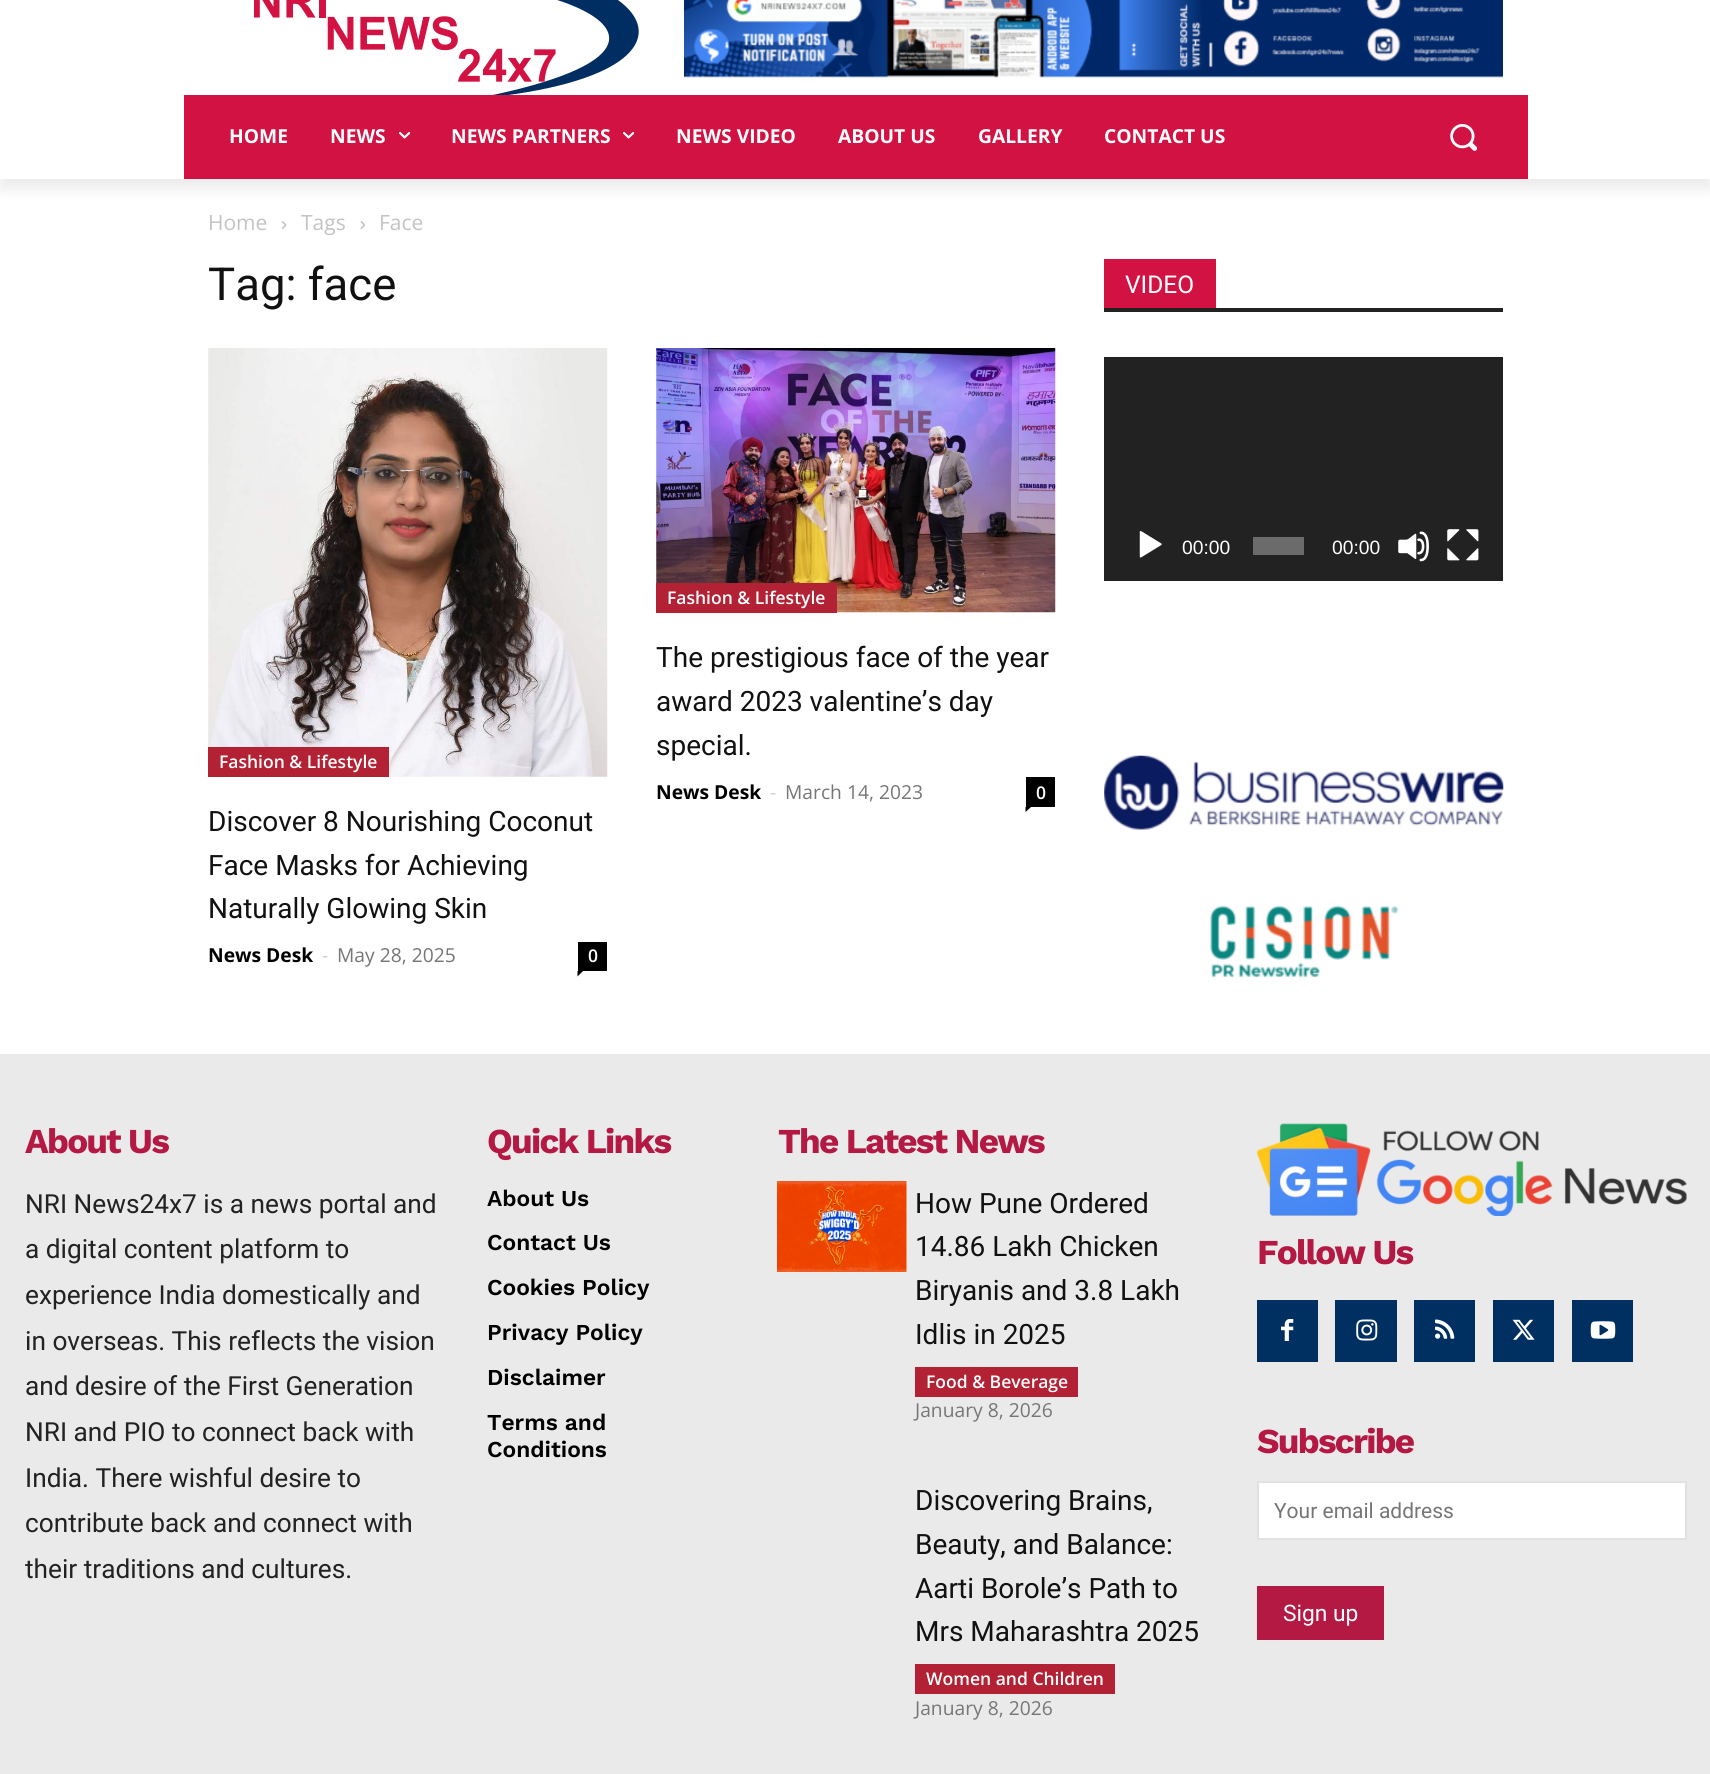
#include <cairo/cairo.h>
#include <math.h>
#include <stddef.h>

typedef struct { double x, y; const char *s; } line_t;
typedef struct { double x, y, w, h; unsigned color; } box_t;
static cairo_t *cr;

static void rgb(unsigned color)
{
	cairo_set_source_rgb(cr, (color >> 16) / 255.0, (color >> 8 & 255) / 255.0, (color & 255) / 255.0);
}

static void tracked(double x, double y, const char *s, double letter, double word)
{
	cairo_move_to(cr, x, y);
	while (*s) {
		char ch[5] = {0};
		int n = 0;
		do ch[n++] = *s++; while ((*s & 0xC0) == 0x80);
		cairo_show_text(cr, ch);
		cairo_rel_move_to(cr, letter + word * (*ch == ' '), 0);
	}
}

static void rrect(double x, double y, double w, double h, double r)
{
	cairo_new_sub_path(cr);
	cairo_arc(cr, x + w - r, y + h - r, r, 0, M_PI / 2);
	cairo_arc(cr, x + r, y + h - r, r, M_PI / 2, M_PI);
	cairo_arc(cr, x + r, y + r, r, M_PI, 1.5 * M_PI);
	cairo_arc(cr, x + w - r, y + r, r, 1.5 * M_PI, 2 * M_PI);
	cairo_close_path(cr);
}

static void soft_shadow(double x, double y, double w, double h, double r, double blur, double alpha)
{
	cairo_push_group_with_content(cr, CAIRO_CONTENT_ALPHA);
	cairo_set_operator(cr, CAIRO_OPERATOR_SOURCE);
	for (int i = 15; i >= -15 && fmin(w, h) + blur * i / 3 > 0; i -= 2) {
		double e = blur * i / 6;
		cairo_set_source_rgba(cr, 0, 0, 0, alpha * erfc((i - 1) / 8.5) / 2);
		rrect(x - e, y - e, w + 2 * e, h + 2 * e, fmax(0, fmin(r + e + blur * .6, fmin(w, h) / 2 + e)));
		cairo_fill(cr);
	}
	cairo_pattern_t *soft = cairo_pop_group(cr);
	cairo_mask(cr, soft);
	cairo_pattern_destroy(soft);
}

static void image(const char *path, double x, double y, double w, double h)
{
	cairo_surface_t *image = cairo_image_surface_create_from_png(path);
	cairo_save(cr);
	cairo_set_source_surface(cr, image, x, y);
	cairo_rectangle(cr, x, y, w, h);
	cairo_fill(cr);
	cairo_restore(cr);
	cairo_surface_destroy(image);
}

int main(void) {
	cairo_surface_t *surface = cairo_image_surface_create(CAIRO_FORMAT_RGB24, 1710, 1774);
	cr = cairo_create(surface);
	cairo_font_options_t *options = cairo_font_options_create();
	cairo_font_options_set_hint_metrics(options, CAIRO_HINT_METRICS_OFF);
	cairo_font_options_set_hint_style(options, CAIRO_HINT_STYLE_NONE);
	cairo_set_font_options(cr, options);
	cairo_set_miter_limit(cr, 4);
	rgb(0xffffff);
	cairo_paint(cr);
	image("img/1.png", 254, 0, 385, 95);
	image("img/2.png", 684, 0, 819, 78);
	rgb(0xd21242);
	cairo_rectangle(cr, 184, 95, 1344, 84);
	cairo_fill(cr);
	cairo_save(cr);
	cairo_set_fill_rule(cr, CAIRO_FILL_RULE_EVEN_ODD);
	cairo_new_path(cr);
	cairo_move_to(cr, 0, 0);
	cairo_line_to(cr, 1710, 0);
	cairo_line_to(cr, 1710, 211);
	cairo_line_to(cr, 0, 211);
	cairo_close_path(cr);
	cairo_move_to(cr, 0, -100);
	cairo_line_to(cr, 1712, -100);
	cairo_line_to(cr, 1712, 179);
	cairo_line_to(cr, 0, 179);
	cairo_close_path(cr);
	cairo_clip(cr);
	rgb(0x000000);
	soft_shadow(0, -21, 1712, 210, 0, 7, 0.08);
	cairo_restore(cr);
	image("img/3.png", 399, 131, 12, 8);
	image("img/3.png", 623, 131, 12, 8);
	image("img/4.png", 1450, 124, 28, 27);
	image("img/5.png", 281, 221, 6, 8);
	image("img/6.png", 360, 221, 6, 8);
	image("img/7.png", 656, 348, 400, 265);
	rgb(0xb22234);
	cairo_rectangle(cr, 656, 583, 181, 30);
	cairo_fill(cr);
	rgb(0x000000);
	cairo_rectangle(cr, 1026, 777, 29, 30);
	cairo_fill(cr);
	cairo_new_path(cr);
	cairo_move_to(cr, 1025.5, 807);
	cairo_line_to(cr, 1031, 807);
	cairo_line_to(cr, 1025.5, 812);
	cairo_close_path(cr);
	cairo_fill(cr);
	image("img/8.png", 208, 348, 400, 429);
	rgb(0xb22234);
	cairo_rectangle(cr, 208, 747, 181, 30);
	cairo_fill(cr);
	rgb(0x000000);
	cairo_rectangle(cr, 578, 942, 29, 29);
	cairo_fill(cr);
	cairo_new_path(cr);
	cairo_move_to(cr, 577.5, 971);
	cairo_line_to(cr, 583, 971);
	cairo_line_to(cr, 577.5, 976.5);
	cairo_close_path(cr);
	cairo_fill(cr);
	{
		static const box_t items[] = {
			{1104, 308, 399, 4, 0x222222},
			{1104, 259, 112, 49, 0xd21242},
			{1104, 357, 399, 224, 0x222222},
		};
		for (size_t i = 0; i < sizeof items / sizeof *items; i++) {
			rgb(items[i].color);
			cairo_rectangle(cr, items[i].x, items[i].y, items[i].w, items[i].h);
			cairo_fill(cr);
		}
	}
	image("img/9.png", 1139, 530, 23, 28);
	rgb(0x6b6b6b);
	cairo_rectangle(cr, 1253, 537, 51, 18);
	cairo_fill(cr);
	image("img/10.png", 1398, 531, 31, 31);
	image("img/11.png", 1447, 529, 32, 32);
	image("img/12.png", 1104, 755, 400, 75);
	image("img/13.png", 1210, 905, 189, 73);
	rgb(0xeaeaea);
	cairo_rectangle(cr, 0, 1054, 1710, 720);
	cairo_fill(cr);
	image("img/14.png", 777, 1181, 130, 91);
	rgb(0xb22234);
	cairo_rectangle(cr, 915, 1367, 163, 30);
	cairo_fill(cr);
	cairo_rectangle(cr, 915, 1664, 200, 30);
	cairo_fill(cr);
	image("img/15.png", 1256, 1123, 431, 93);
	rgb(0x002f62);
	cairo_rectangle(cr, 1257, 1300, 61, 62);
	cairo_fill(cr);
	image("img/16.png", 1281, 1319, 13, 22);
	cairo_rectangle(cr, 1335, 1300, 62, 62);
	cairo_fill(cr);
	image("img/17.png", 1356, 1319, 22, 22);
	cairo_rectangle(cr, 1414, 1300, 61, 62);
	cairo_fill(cr);
	image("img/18.png", 1435, 1319, 20, 20);
	cairo_rectangle(cr, 1493, 1300, 61, 62);
	cairo_fill(cr);
	image("img/19.png", 1512, 1319, 23, 21);
	cairo_rectangle(cr, 1572, 1300, 61, 62);
	cairo_fill(cr);
	image("img/20.png", 1590, 1321, 26, 18);
	rgb(0xffffff);
	cairo_rectangle(cr, 1258, 1482, 428, 57);
	cairo_fill_preserve(cr);
	rgb(0xe1e1e1);
	cairo_stroke(cr);
	rgb(0xb31942);
	cairo_rectangle(cr, 1257, 1586, 127, 54);
	cairo_fill(cr);
	cairo_select_font_face(cr, "Open Sans", CAIRO_FONT_SLANT_NORMAL, CAIRO_FONT_WEIGHT_BOLD);
	cairo_set_font_size(cr, 19.25);
	rgb(0xffffff);
	{
		static const line_t items[] = {
			{229, 143, "HOME"},
			{330, 143, "NEWS"},
			{451, 143, "NEWS PARTNERS"},
			{676, 143, "NEWS VIDEO"},
			{838, 143, "ABOUT US"},
			{978, 143, "GALLERY"},
			{1104, 143, "CONTACT US"},
		};
		for (size_t i = 0; i < sizeof items / sizeof *items; i++) {
			cairo_move_to(cr, items[i].x, items[i].y);
			cairo_show_text(cr, items[i].s);
		}
	}
	cairo_select_font_face(cr, "Open Sans", CAIRO_FONT_SLANT_NORMAL, CAIRO_FONT_WEIGHT_NORMAL);
	cairo_set_font_size(cr, 21);
	rgb(0xc3c3c3);
	{
		static const line_t items[] = {
			{208, 230, "Home"},
			{301, 230, "Tags"},
			{379, 230, "Face"},
		};
		for (size_t i = 0; i < sizeof items / sizeof *items; i++) {
			cairo_move_to(cr, items[i].x, items[i].y);
			cairo_show_text(cr, items[i].s);
		}
	}
	cairo_select_font_face(cr, "Roboto", CAIRO_FONT_SLANT_NORMAL, CAIRO_FONT_WEIGHT_NORMAL);
	cairo_set_font_size(cr, 45.5);
	rgb(0x111111);
	cairo_move_to(cr, 208, 300);
	cairo_show_text(cr, "Tag: face");
	cairo_select_font_face(cr, "Open Sans SemiBold", CAIRO_FONT_SLANT_NORMAL, CAIRO_FONT_WEIGHT_NORMAL);
	cairo_set_font_size(cr, 17.5);
	rgb(0xffffff);
	cairo_move_to(cr, 667, 604);
	cairo_show_text(cr, "Fashion & Lifestyle");
	cairo_select_font_face(cr, "Roboto", CAIRO_FONT_SLANT_NORMAL, CAIRO_FONT_WEIGHT_NORMAL);
	cairo_set_font_size(cr, 28);
	rgb(0x111111);
	{
		static const line_t items[] = {
			{656, 667, "The prestigious face of the year"},
			{656, 711, "award 2023 valentine’s day"},
			{656, 755, "special."},
		};
		for (size_t i = 0; i < sizeof items / sizeof *items; i++) {
			cairo_move_to(cr, items[i].x, items[i].y);
			cairo_show_text(cr, items[i].s);
		}
	}
	cairo_select_font_face(cr, "Open Sans", CAIRO_FONT_SLANT_NORMAL, CAIRO_FONT_WEIGHT_BOLD);
	cairo_set_font_size(cr, 19.25);
	rgb(0x000000);
	cairo_move_to(cr, 656, 799);
	cairo_show_text(cr, "News Desk");
	cairo_select_font_face(cr, "Open Sans", CAIRO_FONT_SLANT_NORMAL, CAIRO_FONT_WEIGHT_NORMAL);
	rgb(0xcccccc);
	cairo_move_to(cr, 770, 799);
	cairo_show_text(cr, "-");
	rgb(0x767676);
	cairo_move_to(cr, 785, 799);
	cairo_show_text(cr, "March 14, 2023");
	cairo_select_font_face(cr, "Open Sans SemiBold", CAIRO_FONT_SLANT_NORMAL, CAIRO_FONT_WEIGHT_NORMAL);
	cairo_set_font_size(cr, 17.5);
	rgb(0xffffff);
	cairo_move_to(cr, 1036, 799);
	cairo_show_text(cr, "0");
	cairo_move_to(cr, 219, 768);
	cairo_show_text(cr, "Fashion & Lifestyle");
	cairo_select_font_face(cr, "Roboto", CAIRO_FONT_SLANT_NORMAL, CAIRO_FONT_WEIGHT_NORMAL);
	cairo_set_font_size(cr, 28);
	rgb(0x111111);
	{
		static const line_t items[] = {
			{208, 831, "Discover 8 Nourishing Coconut"},
			{208, 875, "Face Masks for Achieving"},
			{208, 918, "Naturally Glowing Skin"},
		};
		for (size_t i = 0; i < sizeof items / sizeof *items; i++) {
			cairo_move_to(cr, items[i].x, items[i].y);
			cairo_show_text(cr, items[i].s);
		}
	}
	cairo_select_font_face(cr, "Open Sans", CAIRO_FONT_SLANT_NORMAL, CAIRO_FONT_WEIGHT_BOLD);
	cairo_set_font_size(cr, 19.25);
	rgb(0x000000);
	cairo_move_to(cr, 208, 962);
	cairo_show_text(cr, "News Desk");
	cairo_select_font_face(cr, "Open Sans", CAIRO_FONT_SLANT_NORMAL, CAIRO_FONT_WEIGHT_NORMAL);
	rgb(0xcccccc);
	cairo_move_to(cr, 322, 962);
	cairo_show_text(cr, "-");
	rgb(0x767676);
	cairo_move_to(cr, 337, 962);
	cairo_show_text(cr, "May 28, 2025");
	cairo_select_font_face(cr, "Open Sans SemiBold", CAIRO_FONT_SLANT_NORMAL, CAIRO_FONT_WEIGHT_NORMAL);
	cairo_set_font_size(cr, 17.5);
	rgb(0xffffff);
	cairo_move_to(cr, 588, 962);
	cairo_show_text(cr, "0");
	cairo_select_font_face(cr, "Roboto", CAIRO_FONT_SLANT_NORMAL, CAIRO_FONT_WEIGHT_NORMAL);
	cairo_set_font_size(cr, 24.5);
	cairo_move_to(cr, 1125, 293);
	cairo_show_text(cr, "VIDEO");
	cairo_select_font_face(cr, "Liberation Sans", CAIRO_FONT_SLANT_NORMAL, CAIRO_FONT_WEIGHT_NORMAL);
	cairo_set_font_size(cr, 19.25);
	cairo_move_to(cr, 1182, 554);
	cairo_show_text(cr, "00:00");
	cairo_move_to(cr, 1332, 554);
	cairo_show_text(cr, "00:00");
	cairo_select_font_face(cr, "Work Sans", CAIRO_FONT_SLANT_NORMAL, CAIRO_FONT_WEIGHT_BOLD);
	cairo_set_font_size(cr, 35);
	rgb(0xb31942);
	tracked(25, 1153, "About Us", -1.75, 0);
	cairo_select_font_face(cr, "Roboto", CAIRO_FONT_SLANT_NORMAL, CAIRO_FONT_WEIGHT_NORMAL);
	cairo_set_font_size(cr, 26.25);
	rgb(0x222222);
	{
		static const line_t items[] = {
			{25, 1213, "NRI News24x7 is a news portal and"},
			{25, 1258, "a digital content platform to"},
			{25, 1304, "experience India domestically and"},
			{25, 1350, "in overseas. This reflects the vision"},
			{25, 1395, "and desire of the First Generation"},
			{25, 1441, "NRI and PIO to connect back with"},
			{25, 1487, "India. There wishful desire to"},
			{25, 1532, "contribute back and connect with"},
			{25, 1578, "their traditions and cultures."},
		};
		for (size_t i = 0; i < sizeof items / sizeof *items; i++) {
			cairo_move_to(cr, items[i].x, items[i].y);
			cairo_show_text(cr, items[i].s);
		}
	}
	cairo_select_font_face(cr, "Work Sans", CAIRO_FONT_SLANT_NORMAL, CAIRO_FONT_WEIGHT_BOLD);
	cairo_set_font_size(cr, 35);
	rgb(0xb31942);
	tracked(487, 1153, "Quick Links", -1.75, 0);
	cairo_select_font_face(cr, "Work Sans SemiBold", CAIRO_FONT_SLANT_NORMAL, CAIRO_FONT_WEIGHT_NORMAL);
	cairo_set_font_size(cr, 22.75);
	rgb(0x000000);
	{
		static const line_t items[] = {
			{487, 1206, "About Us"},
			{487, 1250, "Contact Us"},
			{487, 1295, "Cookies Policy"},
			{487, 1340, "Privacy Policy"},
			{487, 1385, "Disclaimer"},
			{487, 1430, "Terms and"},
			{487, 1457, "Conditions"},
		};
		for (size_t i = 0; i < sizeof items / sizeof *items; i++) {
			cairo_move_to(cr, items[i].x, items[i].y);
			cairo_show_text(cr, items[i].s);
		}
	}
	cairo_select_font_face(cr, "Work Sans", CAIRO_FONT_SLANT_NORMAL, CAIRO_FONT_WEIGHT_BOLD);
	cairo_set_font_size(cr, 35);
	rgb(0xb31942);
	tracked(778, 1153, "The Latest News", -1.75, 0);
	cairo_select_font_face(cr, "Roboto", CAIRO_FONT_SLANT_NORMAL, CAIRO_FONT_WEIGHT_NORMAL);
	cairo_set_font_size(cr, 28);
	rgb(0x111111);
	{
		static const line_t items[] = {
			{915, 1213, "How Pune Ordered"},
			{915, 1256, "14.86 Lakh Chicken"},
			{915, 1300, "Biryanis and 3.8 Lakh"},
			{915, 1344, "Idlis in 2025"},
		};
		for (size_t i = 0; i < sizeof items / sizeof *items; i++) {
			cairo_move_to(cr, items[i].x, items[i].y);
			cairo_show_text(cr, items[i].s);
		}
	}
	cairo_select_font_face(cr, "Open Sans SemiBold", CAIRO_FONT_SLANT_NORMAL, CAIRO_FONT_WEIGHT_NORMAL);
	cairo_set_font_size(cr, 17.5);
	rgb(0xffffff);
	cairo_move_to(cr, 926, 1388);
	cairo_show_text(cr, "Food & Beverage");
	cairo_select_font_face(cr, "Open Sans", CAIRO_FONT_SLANT_NORMAL, CAIRO_FONT_WEIGHT_NORMAL);
	cairo_set_font_size(cr, 19.25);
	rgb(0x767676);
	cairo_move_to(cr, 915, 1417);
	cairo_show_text(cr, "January 8, 2026");
	cairo_select_font_face(cr, "Roboto", CAIRO_FONT_SLANT_NORMAL, CAIRO_FONT_WEIGHT_NORMAL);
	cairo_set_font_size(cr, 28);
	rgb(0x111111);
	{
		static const line_t items[] = {
			{915, 1510, "Discovering Brains,"},
			{915, 1554, "Beauty, and Balance:"},
			{915, 1598, "Aarti Borole’s Path to"},
			{915, 1641, "Mrs Maharashtra 2025"},
		};
		for (size_t i = 0; i < sizeof items / sizeof *items; i++) {
			cairo_move_to(cr, items[i].x, items[i].y);
			cairo_show_text(cr, items[i].s);
		}
	}
	cairo_select_font_face(cr, "Open Sans SemiBold", CAIRO_FONT_SLANT_NORMAL, CAIRO_FONT_WEIGHT_NORMAL);
	cairo_set_font_size(cr, 17.5);
	rgb(0xffffff);
	cairo_move_to(cr, 926, 1685);
	cairo_show_text(cr, "Women and Children");
	cairo_select_font_face(cr, "Open Sans", CAIRO_FONT_SLANT_NORMAL, CAIRO_FONT_WEIGHT_NORMAL);
	cairo_set_font_size(cr, 19.25);
	rgb(0x767676);
	cairo_move_to(cr, 915, 1715);
	cairo_show_text(cr, "January 8, 2026");
	cairo_select_font_face(cr, "Work Sans", CAIRO_FONT_SLANT_NORMAL, CAIRO_FONT_WEIGHT_BOLD);
	cairo_set_font_size(cr, 35);
	rgb(0xb31942);
	tracked(1257, 1264, "Follow Us", -1.75, 0);
	tracked(1257, 1453, "Subscribe", -1.75, 0);
	cairo_select_font_face(cr, "Roboto", CAIRO_FONT_SLANT_NORMAL, CAIRO_FONT_WEIGHT_NORMAL);
	cairo_set_font_size(cr, 21);
	rgb(0x767676);
	cairo_move_to(cr, 1274, 1518);
	cairo_show_text(cr, "Your email address");
	cairo_set_font_size(cr, 22.75);
	rgb(0xffffff);
	cairo_move_to(cr, 1283, 1621);
	cairo_show_text(cr, "Sign up");
	cairo_surface_write_to_png(surface, "page.png");
	cairo_font_options_destroy(options);
	cairo_destroy(cr);
	cairo_surface_destroy(surface);
	return 0;
}
